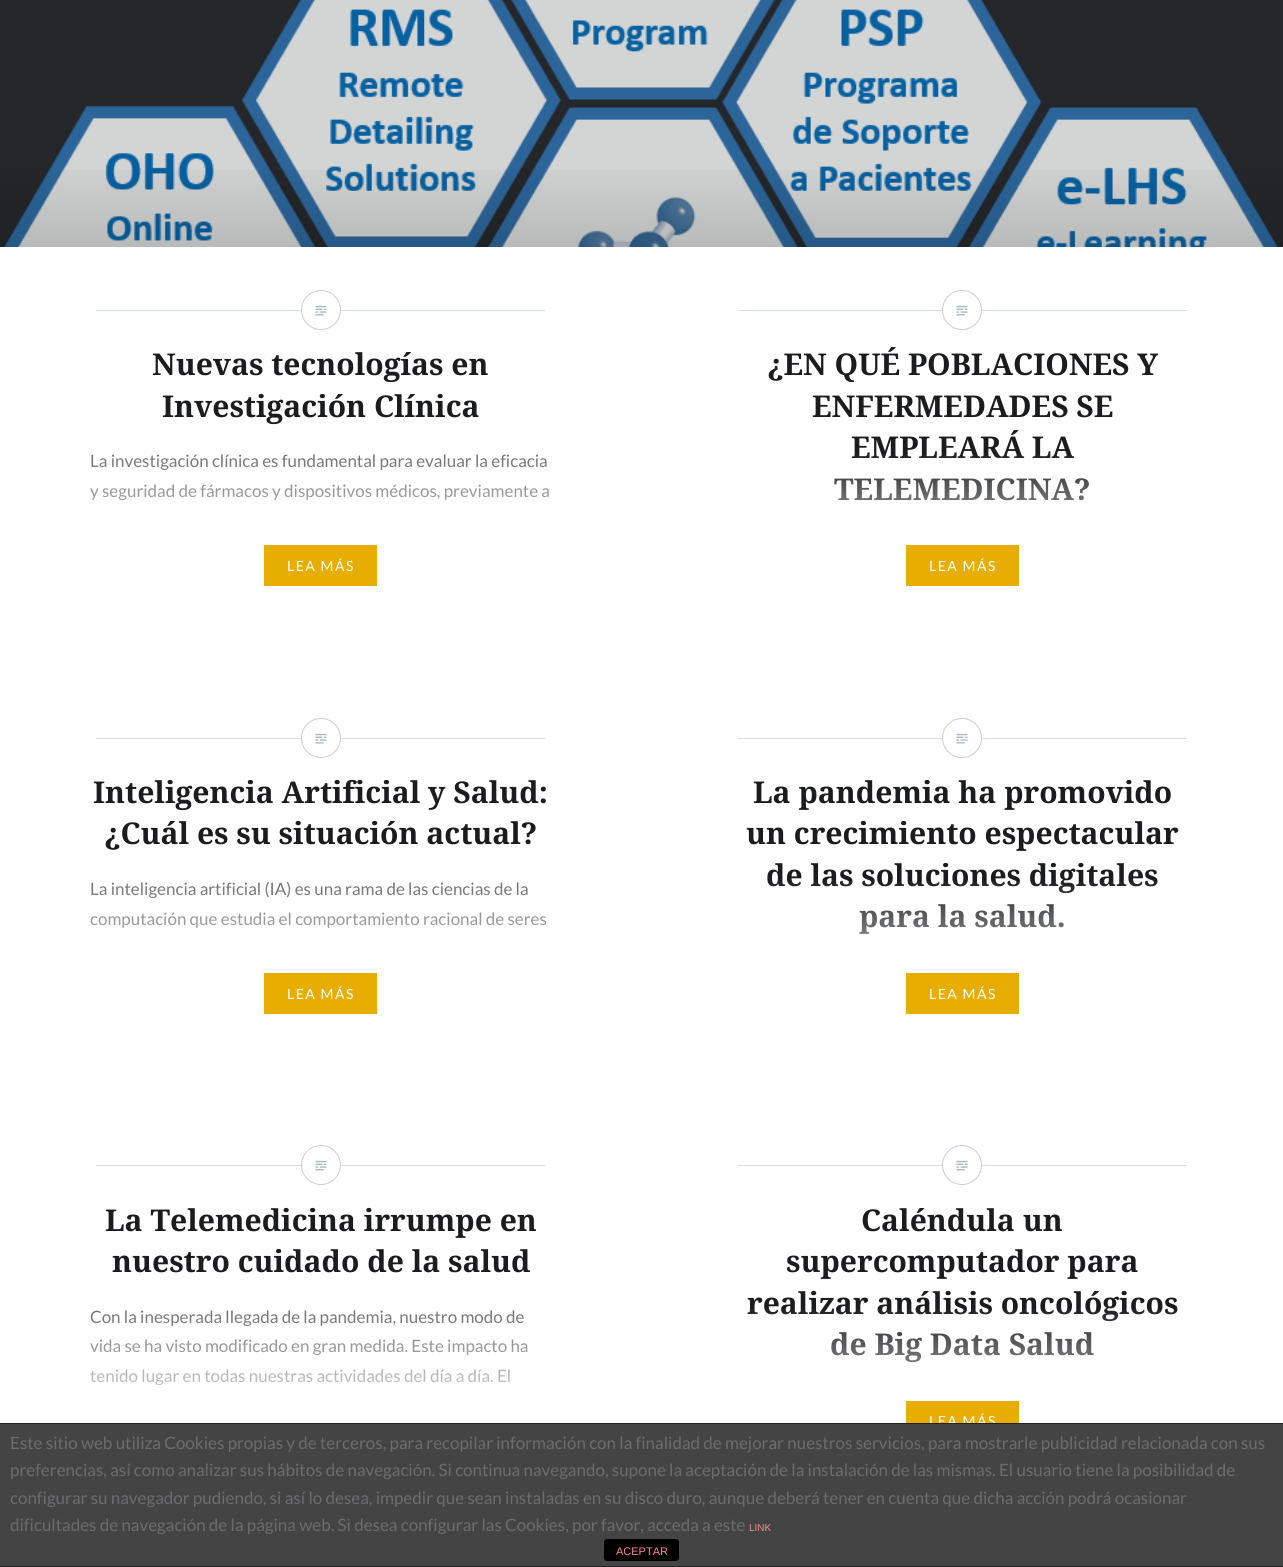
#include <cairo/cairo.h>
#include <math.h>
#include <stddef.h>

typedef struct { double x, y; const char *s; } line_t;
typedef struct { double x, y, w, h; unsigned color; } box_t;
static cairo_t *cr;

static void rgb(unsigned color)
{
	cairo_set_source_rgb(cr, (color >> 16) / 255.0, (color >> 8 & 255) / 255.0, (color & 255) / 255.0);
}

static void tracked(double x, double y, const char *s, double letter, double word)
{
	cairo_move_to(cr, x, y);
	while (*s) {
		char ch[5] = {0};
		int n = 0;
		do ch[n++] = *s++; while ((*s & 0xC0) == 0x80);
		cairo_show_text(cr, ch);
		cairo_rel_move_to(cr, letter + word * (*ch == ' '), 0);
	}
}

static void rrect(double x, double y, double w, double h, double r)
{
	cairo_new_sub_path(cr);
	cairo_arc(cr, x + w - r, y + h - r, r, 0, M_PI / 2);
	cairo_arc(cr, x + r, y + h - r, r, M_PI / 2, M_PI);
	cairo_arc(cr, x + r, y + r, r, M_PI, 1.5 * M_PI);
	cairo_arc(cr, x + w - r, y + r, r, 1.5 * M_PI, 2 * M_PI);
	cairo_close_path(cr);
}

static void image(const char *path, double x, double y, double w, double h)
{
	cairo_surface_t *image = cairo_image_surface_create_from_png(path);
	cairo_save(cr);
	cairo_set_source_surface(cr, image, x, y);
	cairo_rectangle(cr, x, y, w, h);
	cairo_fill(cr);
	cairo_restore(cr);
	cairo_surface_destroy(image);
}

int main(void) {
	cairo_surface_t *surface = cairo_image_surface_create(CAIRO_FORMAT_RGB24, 1283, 1567);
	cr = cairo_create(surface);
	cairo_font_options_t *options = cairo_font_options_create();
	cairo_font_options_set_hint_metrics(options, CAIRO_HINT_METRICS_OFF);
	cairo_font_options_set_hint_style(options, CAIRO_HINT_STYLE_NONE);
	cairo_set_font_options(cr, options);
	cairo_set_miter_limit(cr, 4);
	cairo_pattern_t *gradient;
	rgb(0x242629);
	cairo_paint(cr);
	image("img/1.png", 4, 0, 1274, 247);
	gradient = cairo_pattern_create_linear(642, 154, 642, 513);
	cairo_pattern_add_color_stop_rgba(gradient, 0, 0, 0, 0, 0);
	cairo_pattern_add_color_stop_rgba(gradient, 1, 0, 0, 0, 0.48);
	cairo_set_source(cr, gradient);
	cairo_pattern_destroy(gradient);
	cairo_rectangle(cr, 0, 170, 1283, 77);
	cairo_fill(cr);
	rgb(0xffffff);
	cairo_rectangle(cr, 0, 247, 1283, 428);
	cairo_fill(cr);
	rgb(0xd8dfe6);
	cairo_rectangle(cr, 96, 310, 449, 1);
	cairo_fill(cr);
	rgb(0xffffff);
	cairo_arc(cr, 321, 310, 19.5, 0, 2 * M_PI);
	cairo_fill_preserve(cr);
	rgb(0xc6cfd8);
	cairo_set_line_width(cr, 1);
	cairo_stroke(cr);
	image("img/2.png", 315, 305, 12, 11);
	rgb(0xe7ae01);
	cairo_rectangle(cr, 264, 545, 113, 41);
	cairo_fill(cr);
	rgb(0xd8dfe6);
	cairo_rectangle(cr, 738, 310, 449, 1);
	cairo_fill(cr);
	rgb(0xffffff);
	cairo_arc(cr, 962, 310, 19.5, 0, 2 * M_PI);
	cairo_fill_preserve(cr);
	rgb(0xc6cfd8);
	cairo_stroke(cr);
	image("img/2.png", 956, 305, 12, 11);
	{
		static const box_t items[] = {
			{906, 545, 113, 41, 0xe7ae01},
			{0, 675, 1283, 428, 0xffffff},
			{96, 738, 449, 1, 0xd8dfe6},
		};
		for (size_t i = 0; i < sizeof items / sizeof *items; i++) {
			rgb(items[i].color);
			cairo_rectangle(cr, items[i].x, items[i].y, items[i].w, items[i].h);
			cairo_fill(cr);
		}
	}
	rgb(0xffffff);
	cairo_arc(cr, 321, 738, 19.5, 0, 2 * M_PI);
	cairo_fill_preserve(cr);
	rgb(0xc6cfd8);
	cairo_stroke(cr);
	image("img/2.png", 315, 733, 12, 11);
	rgb(0xe7ae01);
	cairo_rectangle(cr, 264, 973, 113, 41);
	cairo_fill(cr);
	rgb(0xd8dfe6);
	cairo_rectangle(cr, 738, 738, 449, 1);
	cairo_fill(cr);
	rgb(0xffffff);
	cairo_arc(cr, 962, 738, 19.5, 0, 2 * M_PI);
	cairo_fill_preserve(cr);
	rgb(0xc6cfd8);
	cairo_stroke(cr);
	image("img/2.png", 956, 733, 12, 11);
	{
		static const box_t items[] = {
			{906, 973, 113, 41, 0xe7ae01},
			{0, 1103, 642, 320, 0xffffff},
			{96, 1165, 449, 1, 0xd8dfe6},
		};
		for (size_t i = 0; i < sizeof items / sizeof *items; i++) {
			rgb(items[i].color);
			cairo_rectangle(cr, items[i].x, items[i].y, items[i].w, items[i].h);
			cairo_fill(cr);
		}
	}
	rgb(0xffffff);
	cairo_arc(cr, 321, 1165, 19.5, 0, 2 * M_PI);
	cairo_fill_preserve(cr);
	rgb(0xc6cfd8);
	cairo_stroke(cr);
	image("img/2.png", 315, 1160, 12, 11);
	rgb(0xffffff);
	cairo_rectangle(cr, 642, 1103, 641, 320);
	cairo_fill(cr);
	rgb(0xd8dfe6);
	cairo_rectangle(cr, 738, 1165, 449, 1);
	cairo_fill(cr);
	rgb(0xffffff);
	cairo_arc(cr, 962, 1165, 19.5, 0, 2 * M_PI);
	cairo_fill_preserve(cr);
	rgb(0xc6cfd8);
	cairo_stroke(cr);
	image("img/2.png", 956, 1160, 12, 11);
	rgb(0xe7ae01);
	cairo_rectangle(cr, 906, 1401, 113, 22);
	cairo_fill(cr);
	rgb(0x222222);
	cairo_rectangle(cr, 0, 1566, 1283, 1);
	cairo_fill(cr);
	cairo_select_font_face(cr, "Noto Serif", CAIRO_FONT_SLANT_NORMAL, CAIRO_FONT_WEIGHT_BOLD);
	cairo_set_font_size(cr, 30);
	rgb(0x1a1c1e);
	cairo_move_to(cr, 152, 375);
	cairo_show_text(cr, "Nuevas tecnologías en");
	cairo_move_to(cr, 162, 417);
	cairo_show_text(cr, "Investigación Clínica");
	cairo_select_font_face(cr, "Lato", CAIRO_FONT_SLANT_NORMAL, CAIRO_FONT_WEIGHT_NORMAL);
	cairo_set_font_size(cr, 17);
	rgb(0x6a6c6e);
	cairo_move_to(cr, 90, 467);
	cairo_show_text(cr, "La investigación clínica es fundamental para evaluar la eficacia");
	cairo_move_to(cr, 90, 497);
	cairo_show_text(cr, "y seguridad de fármacos y dispositivos médicos, previamente a");
	cairo_set_font_size(cr, 14);
	rgb(0xffffff);
	tracked(287, 571, "LEA MÁS", 1.5, 0);
	gradient = cairo_pattern_create_linear(321, 451, 321, 586);
	cairo_pattern_add_color_stop_rgba(gradient, 0, 1, 1, 1, 0);
	cairo_pattern_add_color_stop_rgba(gradient, 1, 1, 1, 1, 1);
	cairo_set_source(cr, gradient);
	cairo_pattern_destroy(gradient);
	cairo_rectangle(cr, 90, 455, 459, 46);
	cairo_fill(cr);
	cairo_select_font_face(cr, "Noto Serif", CAIRO_FONT_SLANT_NORMAL, CAIRO_FONT_WEIGHT_BOLD);
	cairo_set_font_size(cr, 30);
	rgb(0x1a1c1e);
	{
		static const line_t items[] = {
			{767, 375, "¿EN QUÉ POBLACIONES Y"},
			{812, 417, "ENFERMEDADES SE"},
			{851, 458, "EMPLEARÁ LA"},
			{834, 500, "TELEMEDICINA?"},
		};
		for (size_t i = 0; i < sizeof items / sizeof *items; i++) {
			cairo_move_to(cr, items[i].x, items[i].y);
			cairo_show_text(cr, items[i].s);
		}
	}
	gradient = cairo_pattern_create_linear(963, 451, 963, 586);
	cairo_pattern_add_color_stop_rgba(gradient, 0, 1, 1, 1, 0);
	cairo_pattern_add_color_stop_rgba(gradient, 1, 1, 1, 1, 1);
	cairo_set_source(cr, gradient);
	cairo_pattern_destroy(gradient);
	cairo_rectangle(cr, 834, 454, 255, 47);
	cairo_fill(cr);
	cairo_select_font_face(cr, "Lato", CAIRO_FONT_SLANT_NORMAL, CAIRO_FONT_WEIGHT_NORMAL);
	cairo_set_font_size(cr, 14);
	rgb(0xffffff);
	tracked(929, 571, "LEA MÁS", 1.5, 0);
	cairo_select_font_face(cr, "Noto Serif", CAIRO_FONT_SLANT_NORMAL, CAIRO_FONT_WEIGHT_BOLD);
	cairo_set_font_size(cr, 30);
	rgb(0x1a1c1e);
	cairo_move_to(cr, 93, 803);
	cairo_show_text(cr, "Inteligencia Artificial y Salud:");
	cairo_move_to(cr, 104, 844);
	cairo_show_text(cr, "¿Cuál es su situación actual?");
	cairo_select_font_face(cr, "Lato", CAIRO_FONT_SLANT_NORMAL, CAIRO_FONT_WEIGHT_NORMAL);
	cairo_set_font_size(cr, 17);
	rgb(0x6a6c6e);
	cairo_move_to(cr, 90, 895);
	cairo_show_text(cr, "La inteligencia artificial (IA) es una rama de las ciencias de la");
	cairo_move_to(cr, 90, 925);
	cairo_show_text(cr, "computación que estudia el comportamiento racional de seres");
	cairo_set_font_size(cr, 14);
	rgb(0xffffff);
	tracked(287, 999, "LEA MÁS", 1.5, 0);
	gradient = cairo_pattern_create_linear(321, 878, 321, 1014);
	cairo_pattern_add_color_stop_rgba(gradient, 0, 1, 1, 1, 0);
	cairo_pattern_add_color_stop_rgba(gradient, 1, 1, 1, 1, 1);
	cairo_set_source(cr, gradient);
	cairo_pattern_destroy(gradient);
	cairo_rectangle(cr, 90, 882, 456, 46);
	cairo_fill(cr);
	cairo_select_font_face(cr, "Noto Serif", CAIRO_FONT_SLANT_NORMAL, CAIRO_FONT_WEIGHT_BOLD);
	cairo_set_font_size(cr, 30);
	rgb(0x1a1c1e);
	{
		static const line_t items[] = {
			{753, 803, "La pandemia ha promovido"},
			{746, 844, "un crecimiento espectacular"},
			{766, 886, "de las soluciones digitales"},
			{859, 927, "para la salud."},
		};
		for (size_t i = 0; i < sizeof items / sizeof *items; i++) {
			cairo_move_to(cr, items[i].x, items[i].y);
			cairo_show_text(cr, items[i].s);
		}
	}
	gradient = cairo_pattern_create_linear(963, 878, 963, 1014);
	cairo_pattern_add_color_stop_rgba(gradient, 0, 1, 1, 1, 0);
	cairo_pattern_add_color_stop_rgba(gradient, 1, 1, 1, 1, 1);
	cairo_set_source(cr, gradient);
	cairo_pattern_destroy(gradient);
	cairo_rectangle(cr, 768, 881, 390, 53);
	cairo_fill(cr);
	cairo_select_font_face(cr, "Lato", CAIRO_FONT_SLANT_NORMAL, CAIRO_FONT_WEIGHT_NORMAL);
	cairo_set_font_size(cr, 14);
	rgb(0xffffff);
	tracked(929, 999, "LEA MÁS", 1.5, 0);
	cairo_select_font_face(cr, "Noto Serif", CAIRO_FONT_SLANT_NORMAL, CAIRO_FONT_WEIGHT_BOLD);
	cairo_set_font_size(cr, 30);
	rgb(0x1a1c1e);
	cairo_move_to(cr, 105, 1231);
	cairo_show_text(cr, "La Telemedicina irrumpe en");
	cairo_move_to(cr, 112, 1272);
	cairo_show_text(cr, "nuestro cuidado de la salud");
	cairo_select_font_face(cr, "Lato", CAIRO_FONT_SLANT_NORMAL, CAIRO_FONT_WEIGHT_NORMAL);
	cairo_set_font_size(cr, 17);
	rgb(0x6a6c6e);
	{
		static const line_t items[] = {
			{90, 1323, "Con la inesperada llegada de la pandemia, nuestro modo de"},
			{90, 1352, "vida se ha visto modificado en gran medida. Este impacto ha"},
			{90, 1382, "tenido lugar en todas nuestras actividades del día a día. El"},
		};
		for (size_t i = 0; i < sizeof items / sizeof *items; i++) {
			cairo_move_to(cr, items[i].x, items[i].y);
			cairo_show_text(cr, items[i].s);
		}
	}
	gradient = cairo_pattern_create_linear(321, 1306, 321, 1442);
	cairo_pattern_add_color_stop_rgba(gradient, 0, 1, 1, 1, 0);
	cairo_pattern_add_color_stop_rgba(gradient, 1, 1, 1, 1, 1);
	cairo_set_source(cr, gradient);
	cairo_pattern_destroy(gradient);
	cairo_rectangle(cr, 90, 1311, 438, 75);
	cairo_fill(cr);
	cairo_select_font_face(cr, "Noto Serif", CAIRO_FONT_SLANT_NORMAL, CAIRO_FONT_WEIGHT_BOLD);
	cairo_set_font_size(cr, 30);
	rgb(0x1a1c1e);
	{
		static const line_t items[] = {
			{861, 1231, "Caléndula un"},
			{786, 1272, "supercomputador para"},
			{747, 1314, "realizar análisis oncológicos"},
			{830, 1355, "de Big Data Salud"},
		};
		for (size_t i = 0; i < sizeof items / sizeof *items; i++) {
			cairo_move_to(cr, items[i].x, items[i].y);
			cairo_show_text(cr, items[i].s);
		}
	}
	gradient = cairo_pattern_create_linear(963, 1306, 963, 1442);
	cairo_pattern_add_color_stop_rgba(gradient, 0, 1, 1, 1, 0);
	cairo_pattern_add_color_stop_rgba(gradient, 1, 1, 1, 1, 1);
	cairo_set_source(cr, gradient);
	cairo_pattern_destroy(gradient);
	cairo_rectangle(cr, 747, 1309, 430, 54);
	cairo_fill(cr);
	cairo_select_font_face(cr, "Lato", CAIRO_FONT_SLANT_NORMAL, CAIRO_FONT_WEIGHT_NORMAL);
	cairo_set_font_size(cr, 14);
	rgb(0xffffff);
	tracked(929, 1426, "LEA MÁS", 1.5, 0);
	rgb(0x444444);
	cairo_rectangle(cr, 0, 1424, 1283, 142);
	cairo_fill(cr);
	rgb(0x222222);
	cairo_rectangle(cr, 0, 1423, 1283, 1);
	cairo_fill(cr);
	cairo_set_font_size(cr, 17);
	rgb(0x6a6c6e);
	{
		static const line_t items[] = {
			{10, 1449, "Este sitio web utiliza Cookies propias y de terceros, para recopilar información con la finalidad de mejorar nuestros servicios, para mostrarle publicidad relacionada con sus"},
			{10, 1476, "preferencias, así como analizar sus hábitos de navegación. Si continua navegando, supone la aceptación de la instalación de las mismas. El usuario tiene la posibilidad de"},
			{10, 1504, "configurar su navegador pudiendo, si así lo desea, impedir que sean instaladas en su disco duro, aunque deberá tener en cuenta que dicha acción podrá ocasionar"},
			{10, 1531, "dificultades de navegación de la página web. Si desea configurar las Cookies, por favor, acceda a este"},
		};
		for (size_t i = 0; i < sizeof items / sizeof *items; i++) {
			cairo_move_to(cr, items[i].x, items[i].y);
			cairo_show_text(cr, items[i].s);
		}
	}
	cairo_select_font_face(cr, "Liberation Sans", CAIRO_FONT_SLANT_NORMAL, CAIRO_FONT_WEIGHT_NORMAL);
	cairo_set_font_size(cr, 10);
	rgb(0xff8888);
	cairo_move_to(cr, 749, 1531);
	cairo_show_text(cr, "LINK");
	rgb(0x000000);
	rrect(604, 1539, 75, 22, 3);
	cairo_fill(cr);
	cairo_set_font_size(cr, 11);
	rgb(0xff8888);
	cairo_move_to(cr, 616, 1555);
	cairo_show_text(cr, "ACEPTAR");
	cairo_surface_write_to_png(surface, "page.png");
	cairo_font_options_destroy(options);
	cairo_destroy(cr);
	cairo_surface_destroy(surface);
	return 0;
}
